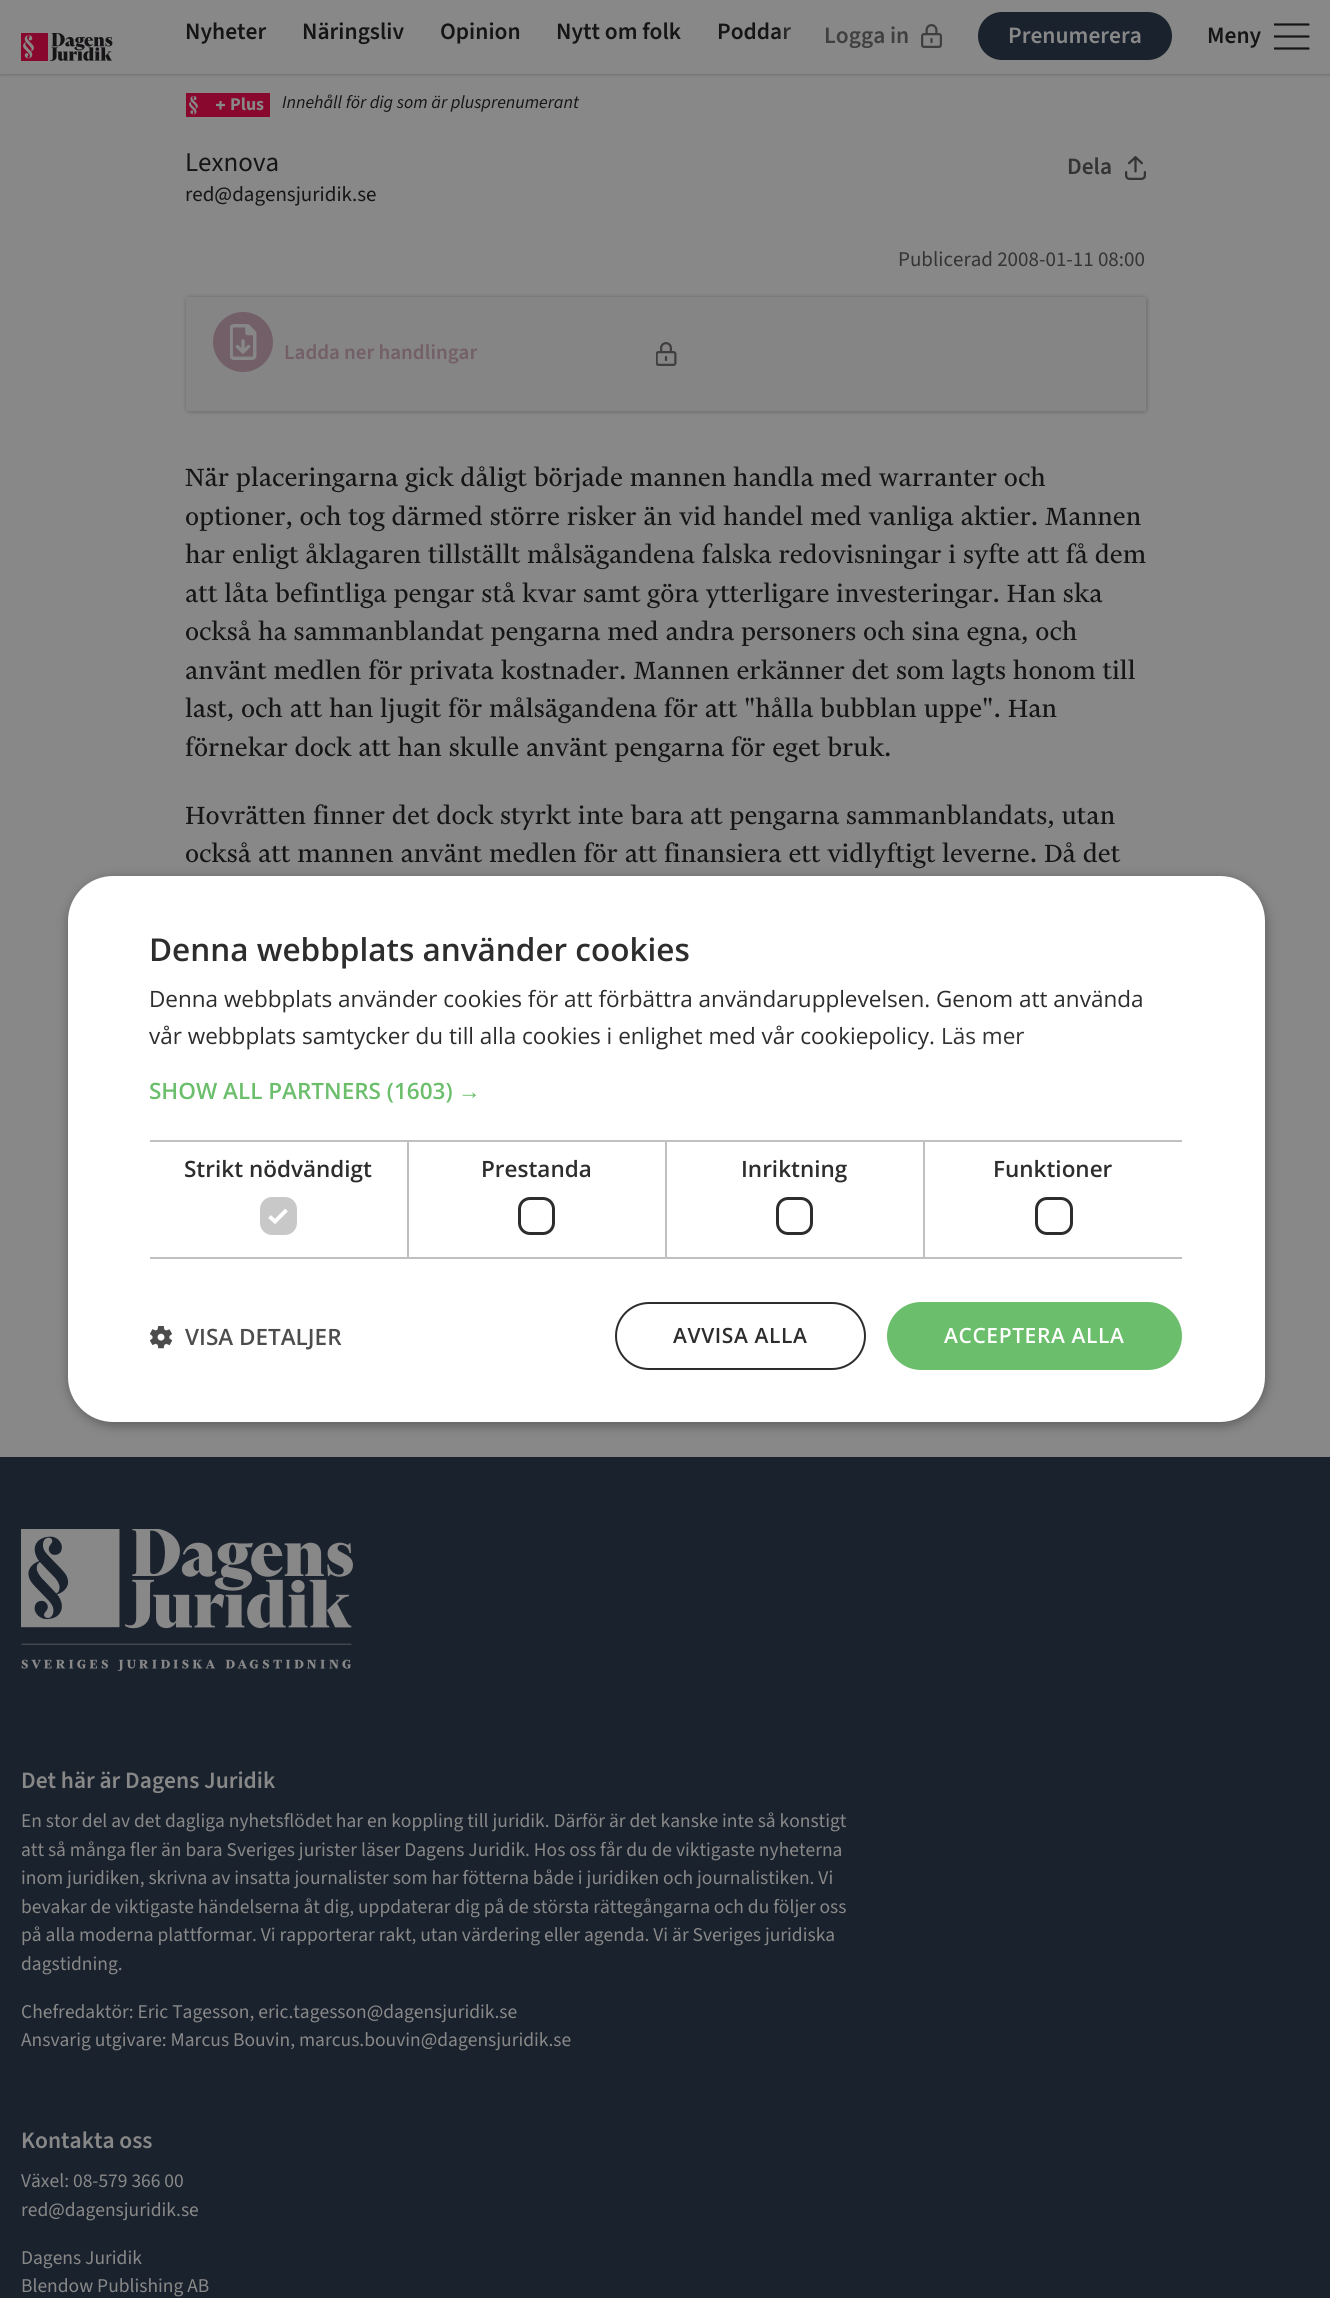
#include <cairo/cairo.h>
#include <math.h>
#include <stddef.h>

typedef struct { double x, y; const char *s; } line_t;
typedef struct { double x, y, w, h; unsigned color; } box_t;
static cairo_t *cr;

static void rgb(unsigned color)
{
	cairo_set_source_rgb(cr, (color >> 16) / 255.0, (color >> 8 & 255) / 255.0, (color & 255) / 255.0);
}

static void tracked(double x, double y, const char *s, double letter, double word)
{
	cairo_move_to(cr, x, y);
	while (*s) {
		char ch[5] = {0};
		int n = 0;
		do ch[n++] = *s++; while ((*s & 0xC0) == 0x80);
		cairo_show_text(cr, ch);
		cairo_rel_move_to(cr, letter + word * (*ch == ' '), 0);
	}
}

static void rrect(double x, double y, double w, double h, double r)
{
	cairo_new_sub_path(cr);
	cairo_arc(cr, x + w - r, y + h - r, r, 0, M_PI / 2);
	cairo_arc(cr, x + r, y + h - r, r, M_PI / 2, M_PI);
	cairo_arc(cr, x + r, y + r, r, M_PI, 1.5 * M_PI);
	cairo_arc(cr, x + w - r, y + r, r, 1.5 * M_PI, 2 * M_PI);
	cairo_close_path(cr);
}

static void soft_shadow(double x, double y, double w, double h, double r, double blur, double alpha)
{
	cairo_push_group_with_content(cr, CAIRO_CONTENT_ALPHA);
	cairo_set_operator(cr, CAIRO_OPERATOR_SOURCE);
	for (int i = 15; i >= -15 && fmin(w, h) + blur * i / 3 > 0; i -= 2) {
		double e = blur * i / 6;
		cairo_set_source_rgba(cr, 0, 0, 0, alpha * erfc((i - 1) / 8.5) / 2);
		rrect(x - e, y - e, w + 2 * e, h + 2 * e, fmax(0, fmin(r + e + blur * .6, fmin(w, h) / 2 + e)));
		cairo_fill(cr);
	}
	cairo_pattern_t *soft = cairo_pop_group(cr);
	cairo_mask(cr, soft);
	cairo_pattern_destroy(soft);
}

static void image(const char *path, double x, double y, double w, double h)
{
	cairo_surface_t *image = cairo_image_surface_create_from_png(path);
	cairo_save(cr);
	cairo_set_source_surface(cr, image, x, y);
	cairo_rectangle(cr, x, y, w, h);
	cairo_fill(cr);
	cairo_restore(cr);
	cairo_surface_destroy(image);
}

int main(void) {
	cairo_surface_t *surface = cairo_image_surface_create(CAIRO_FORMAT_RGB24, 1330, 2298);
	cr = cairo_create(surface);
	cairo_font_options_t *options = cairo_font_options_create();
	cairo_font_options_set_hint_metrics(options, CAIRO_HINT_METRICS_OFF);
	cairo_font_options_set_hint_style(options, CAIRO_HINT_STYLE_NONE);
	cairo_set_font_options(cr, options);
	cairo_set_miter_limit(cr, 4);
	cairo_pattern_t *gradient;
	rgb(0x888888);
	cairo_paint(cr);
	rgb(0x090909);
	soft_shadow(0, 2, 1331, 73, 0, 1.5, 0.2);
	rgb(0x888888);
	cairo_rectangle(cr, 0, 0, 1330, 74);
	cairo_fill(cr);
	image("img/1.png", 21, 33, 92, 28);
	image("img/2.png", 921, 24, 21, 24);
	rgb(0x1a222d);
	rrect(978, 12, 194, 48, 24);
	cairo_fill(cr);
	cairo_save(cr);
	cairo_rectangle(cr, 1274, 23, 36, 27);
	cairo_clip(cr);
	cairo_new_path(cr);
	cairo_move_to(cr, 1274.5, 24.5);
	cairo_line_to(cr, 1308.5, 24.5);
	cairo_move_to(cr, 1274.5, 36.5);
	cairo_line_to(cr, 1308.5, 36.5);
	cairo_move_to(cr, 1274.5, 48.5);
	cairo_line_to(cr, 1308.5, 48.5);
	rgb(0x161516);
	cairo_set_line_width(cr, 2.2);
	cairo_set_line_cap(cr, CAIRO_LINE_CAP_ROUND);
	cairo_stroke(cr);
	cairo_restore(cr);
	rgb(0x88092d);
	cairo_rectangle(cr, 186, 93, 84, 24);
	cairo_fill(cr);
	image("img/3.png", 189, 96, 9, 19);
	image("img/4.png", 216, 101, 9, 9);
	image("img/5.png", 1125, 156, 21, 24);
	rgb(0x090909);
	soft_shadow(185, 296, 963, 117, 5, 1.5, 0.15);
	rgb(0x858382);
	rrect(186, 297, 960, 114, 3);
	cairo_fill(cr);
	rgb(0x552237);
	cairo_arc(cr, 243, 342, 30, 0, 2 * M_PI);
	cairo_fill(cr);
	image("img/7.png", 230, 324, 27, 36);
	rgb(0x1a222d);
	cairo_rectangle(cr, 0, 1457, 1330, 841);
	cairo_fill(cr);
	image("img/8.png", 21, 1529, 332, 142);
	rgb(0x000000);
	soft_shadow(69, 879, 1197, 546, 45, 6, 0.35);
	rgb(0xffffff);
	rrect(68, 876, 1197, 546, 45);
	cairo_fill(cr);
	{
		static const box_t items[] = {
			{150, 1140, 258, 2, 0xc0c0c0},
			{407, 1140, 2, 119, 0xc0c0c0},
			{150, 1257, 258, 2, 0xc0c0c0},
		};
		for (size_t i = 0; i < sizeof items / sizeof *items; i++) {
			rgb(items[i].color);
			cairo_rectangle(cr, items[i].x, items[i].y, items[i].w, items[i].h);
			cairo_fill(cr);
		}
	}
	rgb(0xc8c8c8);
	rrect(260, 1197, 37, 38, 12);
	cairo_fill(cr);
	cairo_new_path(cr);
	cairo_move_to(cr, 269.5, 1216.5);
	cairo_line_to(cr, 275, 1221.5);
	cairo_line_to(cr, 286.5, 1210);
	rgb(0xffffff);
	cairo_set_line_width(cr, 3.9);
	cairo_stroke(cr);
	{
		static const box_t items[] = {
			{408, 1140, 258, 2, 0xc0c0c0},
			{665, 1140, 2, 119, 0xc0c0c0},
			{408, 1257, 258, 2, 0xc0c0c0},
		};
		for (size_t i = 0; i < sizeof items / sizeof *items; i++) {
			rgb(items[i].color);
			cairo_rectangle(cr, items[i].x, items[i].y, items[i].w, items[i].h);
			cairo_fill(cr);
		}
	}
	rrect(519.5, 1198.5, 34, 35, 10.5);
	rgb(0x2d2d2d);
	cairo_set_line_width(cr, 3);
	cairo_stroke(cr);
	{
		static const box_t items[] = {
			{666, 1140, 258, 2, 0xc0c0c0},
			{923, 1140, 2, 119, 0xc0c0c0},
			{666, 1257, 516, 2, 0xc0c0c0},
		};
		for (size_t i = 0; i < sizeof items / sizeof *items; i++) {
			rgb(items[i].color);
			cairo_rectangle(cr, items[i].x, items[i].y, items[i].w, items[i].h);
			cairo_fill(cr);
		}
	}
	rrect(777.5, 1198.5, 34, 35, 10.5);
	rgb(0x2d2d2d);
	cairo_stroke(cr);
	rgb(0xc0c0c0);
	cairo_rectangle(cr, 924, 1140, 258, 2);
	cairo_fill(cr);
	rrect(1036.5, 1198.5, 35, 35, 10.5);
	rgb(0x2d2d2d);
	cairo_stroke(cr);
	image("img/9.png", 150, 1326, 23, 23);
	rrect(616, 1303, 249, 66, 33);
	cairo_set_line_width(cr, 2);
	cairo_stroke(cr);
	rgb(0x6bbe6b);
	rrect(887, 1302, 295, 68, 34);
	cairo_fill(cr);
	cairo_select_font_face(cr, "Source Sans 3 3 ExtraLight", CAIRO_FONT_SLANT_NORMAL, CAIRO_FONT_WEIGHT_NORMAL);
	cairo_set_font_size(cr, 23.5);
	rgb(0x161516);
	{
		static const line_t items[] = {
			{185, 39, "Nyheter"},
			{302, 39, "Näringsliv"},
			{440, 39, "Opinion"},
			{556, 39, "Nytt om folk"},
			{717, 39, "Poddar"},
		};
		for (size_t i = 0; i < sizeof items / sizeof *items; i++) {
			cairo_move_to(cr, items[i].x, items[i].y);
			cairo_show_text(cr, items[i].s);
		}
	}
	gradient = cairo_pattern_create_linear(824, 37, 776, 37);
	cairo_pattern_add_color_stop_rgba(gradient, 0, 0.533, 0.533, 0.533, 1);
	cairo_pattern_add_color_stop_rgba(gradient, 1, 0.533, 0.533, 0.533, 0);
	cairo_set_source(cr, gradient);
	cairo_pattern_destroy(gradient);
	cairo_rectangle(cr, 777, 27, 14, 12);
	cairo_fill(cr);
	rgb(0x403f40);
	cairo_move_to(cr, 824, 43);
	cairo_show_text(cr, "Logga in");
	rgb(0x888888);
	cairo_move_to(cr, 1008, 43);
	cairo_show_text(cr, "Prenumerera");
	rgb(0x161516);
	cairo_move_to(cr, 1207, 43);
	cairo_show_text(cr, "Meny");
	cairo_select_font_face(cr, "Source Sans 3 ExtraLight", CAIRO_FONT_SLANT_NORMAL, CAIRO_FONT_WEIGHT_NORMAL);
	cairo_set_font_size(cr, 18);
	rgb(0x888888);
	cairo_move_to(cr, 230, 110);
	cairo_show_text(cr, "Plus");
	cairo_select_font_face(cr, "Source Sans 3 ExtraLight", CAIRO_FONT_SLANT_ITALIC, CAIRO_FONT_WEIGHT_NORMAL);
	rgb(0x161516);
	cairo_move_to(cr, 282, 108);
	cairo_show_text(cr, "Innehåll för dig som är plusprenumerant");
	cairo_select_font_face(cr, "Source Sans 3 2 ExtraLight", CAIRO_FONT_SLANT_NORMAL, CAIRO_FONT_WEIGHT_NORMAL);
	cairo_set_font_size(cr, 27);
	cairo_move_to(cr, 185, 171);
	cairo_show_text(cr, "Lexnova");
	cairo_set_font_size(cr, 21);
	cairo_move_to(cr, 185, 201);
	cairo_show_text(cr, "red@dagensjuridik.se");
	cairo_select_font_face(cr, "Source Sans 3 3 ExtraLight", CAIRO_FONT_SLANT_NORMAL, CAIRO_FONT_WEIGHT_NORMAL);
	cairo_set_font_size(cr, 23.5);
	rgb(0x353435);
	cairo_move_to(cr, 1067, 174);
	cairo_show_text(cr, "Dela");
	cairo_select_font_face(cr, "Source Sans 3 2 ExtraLight", CAIRO_FONT_SLANT_NORMAL, CAIRO_FONT_WEIGHT_NORMAL);
	cairo_set_font_size(cr, 21);
	cairo_move_to(cr, 898, 266);
	cairo_show_text(cr, "Publicerad 2008-01-11 08:00");
	cairo_select_font_face(cr, "Source Sans 3 3 ExtraLight", CAIRO_FONT_SLANT_NORMAL, CAIRO_FONT_WEIGHT_NORMAL);
	rgb(0x552237);
	cairo_move_to(cr, 284, 359);
	cairo_show_text(cr, "Ladda ner handlingar");
	cairo_set_source_rgba(cr, 0.533, 0.533, 0.533, 0.6);
	cairo_rectangle(cr, 186, 297, 960, 114);
	cairo_fill(cr);
	image("img/6.png", 656, 342, 21, 24);
	cairo_select_font_face(cr, "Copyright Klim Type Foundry", CAIRO_FONT_SLANT_NORMAL, CAIRO_FONT_WEIGHT_NORMAL);
	cairo_set_font_size(cr, 29.5);
	rgb(0x161516);
	{
		static const line_t items[] = {
			{185, 486, "När placeringarna gick dåligt började mannen handla med warranter och"},
			{185, 525, "optioner, och tog därmed större risker än vid handel med vanliga aktier. Mannen"},
			{185, 563, "har enligt åklagaren tillställt målsägandena falska redovisningar i syfte att få dem"},
			{185, 602, "att låta befintliga pengar stå kvar samt göra ytterligare investeringar. Han ska"},
			{185, 640, "också ha sammanblandat pengarna med andra personers och sina egna, och"},
			{185, 679, "använt medlen för privata kostnader. Mannen erkänner det som lagts honom till"},
			{185, 717, "last, och att han ljugit för målsägandena för att \"hålla bubblan uppe\". Han"},
			{185, 756, "förnekar dock att han skulle använt pengarna för eget bruk."},
			{185, 824, "Hovrätten finner det dock styrkt inte bara att pengarna sammanblandats, utan"},
			{185, 862, "också att mannen använt medlen för att finansiera ett vidlyftigt leverne. Då det"},
		};
		for (size_t i = 0; i < sizeof items / sizeof *items; i++) {
			cairo_move_to(cr, items[i].x, items[i].y);
			cairo_show_text(cr, items[i].s);
		}
	}
	cairo_select_font_face(cr, "Source Sans 3 3 ExtraLight", CAIRO_FONT_SLANT_NORMAL, CAIRO_FONT_WEIGHT_NORMAL);
	cairo_set_font_size(cr, 23.5);
	rgb(0x888888);
	cairo_move_to(cr, 21, 1788);
	cairo_show_text(cr, "Det här är Dagens Juridik");
	cairo_select_font_face(cr, "Source Sans 3 2 ExtraLight", CAIRO_FONT_SLANT_NORMAL, CAIRO_FONT_WEIGHT_NORMAL);
	cairo_set_font_size(cr, 19.5);
	{
		static const line_t items[] = {
			{21, 1827, "En stor del av det dagliga nyhetsflödet har en koppling till juridik. Därför är det kanske inte så konstigt"},
			{21, 1856, "att så många fler än bara Sveriges jurister läser Dagens Juridik. Hos oss får du de viktigaste nyheterna"},
			{21, 1884, "inom juridiken, skrivna av insatta journalister som har fötterna både i juridiken och journalistiken. Vi"},
			{21, 1913, "bevakar de viktigaste händelserna åt dig, uppdaterar dig på de största rättegångarna och du följer oss"},
			{21, 1941, "på alla moderna plattformar. Vi rapporterar rakt, utan värdering eller agenda. Vi är Sveriges juridiska"},
			{21, 1970, "dagstidning."},
			{21, 2018, "Chefredaktör: Eric Tagesson, eric.tagesson@dagensjuridik.se"},
			{21, 2046, "Ansvarig utgivare: Marcus Bouvin, marcus.bouvin@dagensjuridik.se"},
		};
		for (size_t i = 0; i < sizeof items / sizeof *items; i++) {
			cairo_move_to(cr, items[i].x, items[i].y);
			cairo_show_text(cr, items[i].s);
		}
	}
	cairo_select_font_face(cr, "Source Sans 3 3 ExtraLight", CAIRO_FONT_SLANT_NORMAL, CAIRO_FONT_WEIGHT_NORMAL);
	cairo_set_font_size(cr, 23.5);
	cairo_move_to(cr, 21, 2148);
	cairo_show_text(cr, "Kontakta oss");
	cairo_select_font_face(cr, "Source Sans 3 2 ExtraLight", CAIRO_FONT_SLANT_NORMAL, CAIRO_FONT_WEIGHT_NORMAL);
	cairo_set_font_size(cr, 19.5);
	{
		static const line_t items[] = {
			{21, 2187, "Växel: 08-579 366 00"},
			{21, 2216, "red@dagensjuridik.se"},
			{21, 2264, "Dagens Juridik"},
			{21, 2292, "Blendow Publishing AB"},
		};
		for (size_t i = 0; i < sizeof items / sizeof *items; i++) {
			cairo_move_to(cr, items[i].x, items[i].y);
			cairo_show_text(cr, items[i].s);
		}
	}
	cairo_select_font_face(cr, "Open Sans SemiBold", CAIRO_FONT_SLANT_NORMAL, CAIRO_FONT_WEIGHT_NORMAL);
	cairo_set_font_size(cr, 31.5);
	rgb(0x2d2d2d);
	cairo_move_to(cr, 149, 961);
	cairo_show_text(cr, "Denna webbplats använder cookies");
	cairo_select_font_face(cr, "Open Sans", CAIRO_FONT_SLANT_NORMAL, CAIRO_FONT_WEIGHT_NORMAL);
	cairo_set_font_size(cr, 22.5);
	cairo_move_to(cr, 149, 1007);
	cairo_show_text(cr, "Denna webbplats använder cookies för att förbättra användarupplevelsen. Genom att använda");
	cairo_move_to(cr, 149, 1044);
	cairo_show_text(cr, "vår webbplats samtycker du till alla cookies i enlighet med vår cookiepolicy.");
	rgb(0x353435);
	cairo_move_to(cr, 941, 1044);
	cairo_show_text(cr, "Läs mer");
	cairo_select_font_face(cr, "Open Sans SemiBold", CAIRO_FONT_SLANT_NORMAL, CAIRO_FONT_WEIGHT_NORMAL);
	rgb(0x6bbe6b);
	cairo_move_to(cr, 149, 1099);
	cairo_show_text(cr, "SHOW ALL PARTNERS (1603)");
	cairo_select_font_face(cr, "Liberation Sans", CAIRO_FONT_SLANT_NORMAL, CAIRO_FONT_WEIGHT_BOLD);
	cairo_move_to(cr, 458, 1099);
	cairo_show_text(cr, "→");
	cairo_select_font_face(cr, "Open Sans SemiBold", CAIRO_FONT_SLANT_NORMAL, CAIRO_FONT_WEIGHT_NORMAL);
	rgb(0x2d2d2d);
	{
		static const line_t items[] = {
			{184, 1177, "Strikt nödvändigt"},
			{481, 1177, "Prestanda"},
			{741, 1177, "Inriktning"},
			{993, 1177, "Funktioner"},
		};
		for (size_t i = 0; i < sizeof items / sizeof *items; i++) {
			cairo_move_to(cr, items[i].x, items[i].y);
			cairo_show_text(cr, items[i].s);
		}
	}
	rgb(0x4d4d4d);
	cairo_move_to(cr, 185, 1345);
	cairo_show_text(cr, "VISA DETALJER");
	cairo_set_font_size(cr, 21);
	rgb(0x2d2d2d);
	tracked(673, 1343, "AVVISA ALLA", 0.6, 0);
	rgb(0xffffff);
	tracked(944, 1343, "ACCEPTERA ALLA", 0.6, 0);
	cairo_surface_write_to_png(surface, "page.png");
	cairo_font_options_destroy(options);
	cairo_destroy(cr);
	cairo_surface_destroy(surface);
	return 0;
}
